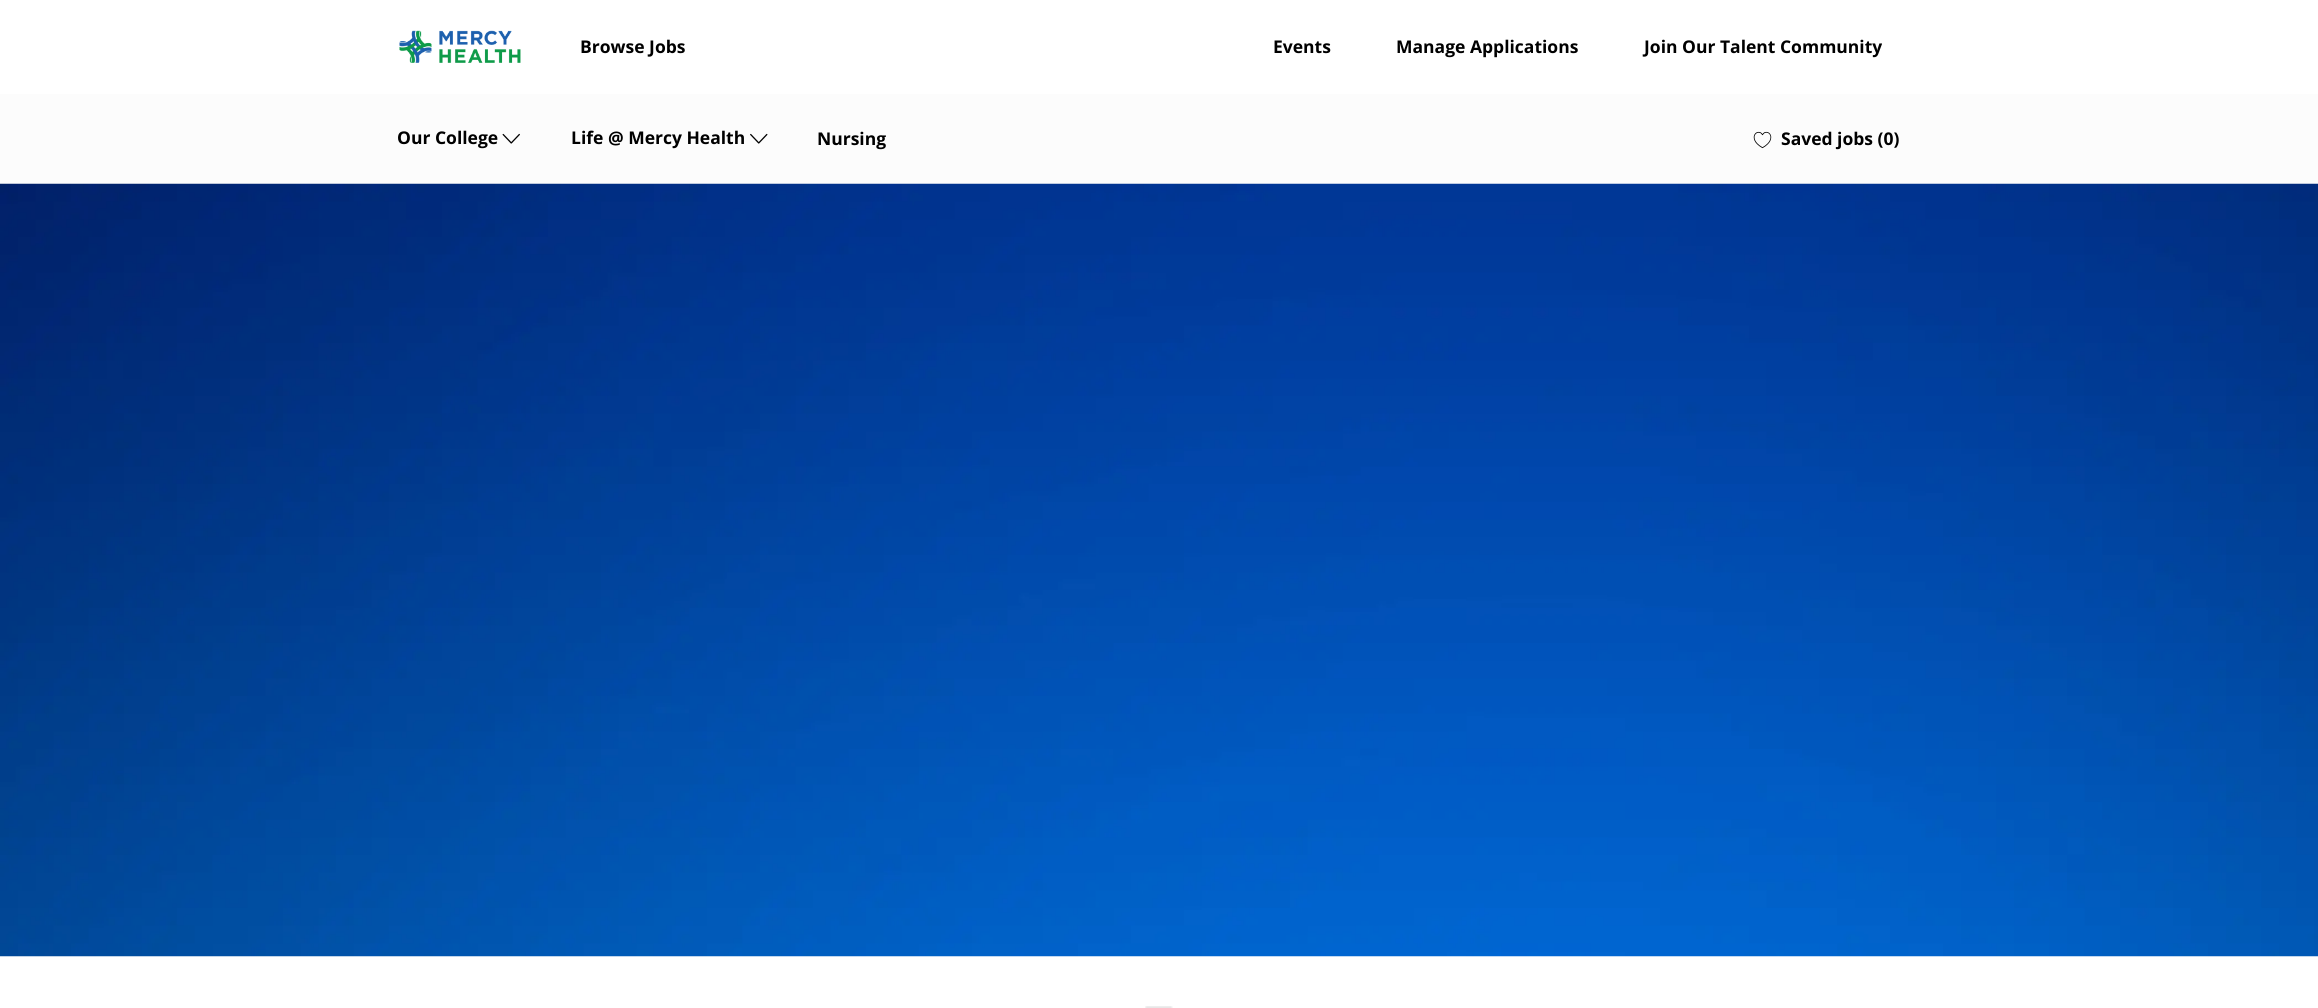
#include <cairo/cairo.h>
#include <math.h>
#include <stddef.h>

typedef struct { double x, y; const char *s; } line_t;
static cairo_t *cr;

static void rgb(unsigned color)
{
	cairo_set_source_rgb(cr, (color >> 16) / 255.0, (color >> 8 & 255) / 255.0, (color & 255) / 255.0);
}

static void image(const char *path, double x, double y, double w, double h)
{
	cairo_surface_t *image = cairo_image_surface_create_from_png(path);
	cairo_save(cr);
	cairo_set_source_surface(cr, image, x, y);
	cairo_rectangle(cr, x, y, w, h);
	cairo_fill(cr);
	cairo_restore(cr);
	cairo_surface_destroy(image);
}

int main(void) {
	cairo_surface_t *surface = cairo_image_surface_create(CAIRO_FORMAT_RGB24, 2318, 1008);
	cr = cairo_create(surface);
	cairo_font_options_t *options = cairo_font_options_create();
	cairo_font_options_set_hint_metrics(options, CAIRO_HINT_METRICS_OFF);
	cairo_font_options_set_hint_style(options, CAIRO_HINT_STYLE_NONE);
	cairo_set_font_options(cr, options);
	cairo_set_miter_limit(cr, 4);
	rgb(0xffffff);
	cairo_paint(cr);
	image("img/1.png", 399, 30, 122, 33);
	rgb(0xfcfcfc);
	cairo_rectangle(cr, 0, 94, 2318, 90);
	cairo_fill(cr);
	image("img/2.png", 502, 133, 18, 11);
	image("img/3.png", 750, 133, 18, 11);
	image("img/4.png", 1753, 131, 19, 18);
	image("img/5.png", 0, 183, 2318, 774);
	image("img/6.png", 1145, 1006, 28, 2);
	cairo_select_font_face(cr, "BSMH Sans", CAIRO_FONT_SLANT_NORMAL, CAIRO_FONT_WEIGHT_BOLD);
	cairo_set_font_size(cr, 17.5);
	rgb(0x000000);
	{
		static const line_t items[] = {
			{580, 53, "Browse Jobs"},
			{1273, 53, "Events"},
			{1396, 53, "Manage Applications"},
			{1644, 53, "Join Our Talent Community"},
			{397, 144, "Our College"},
			{571, 144, "Life @ Mercy Health"},
			{817, 145, "Nursing"},
			{1781, 145, "Saved jobs (0)"},
		};
		for (size_t i = 0; i < sizeof items / sizeof *items; i++) {
			cairo_move_to(cr, items[i].x, items[i].y);
			cairo_show_text(cr, items[i].s);
		}
	}
	cairo_surface_write_to_png(surface, "page.png");
	cairo_font_options_destroy(options);
	cairo_destroy(cr);
	cairo_surface_destroy(surface);
	return 0;
}
